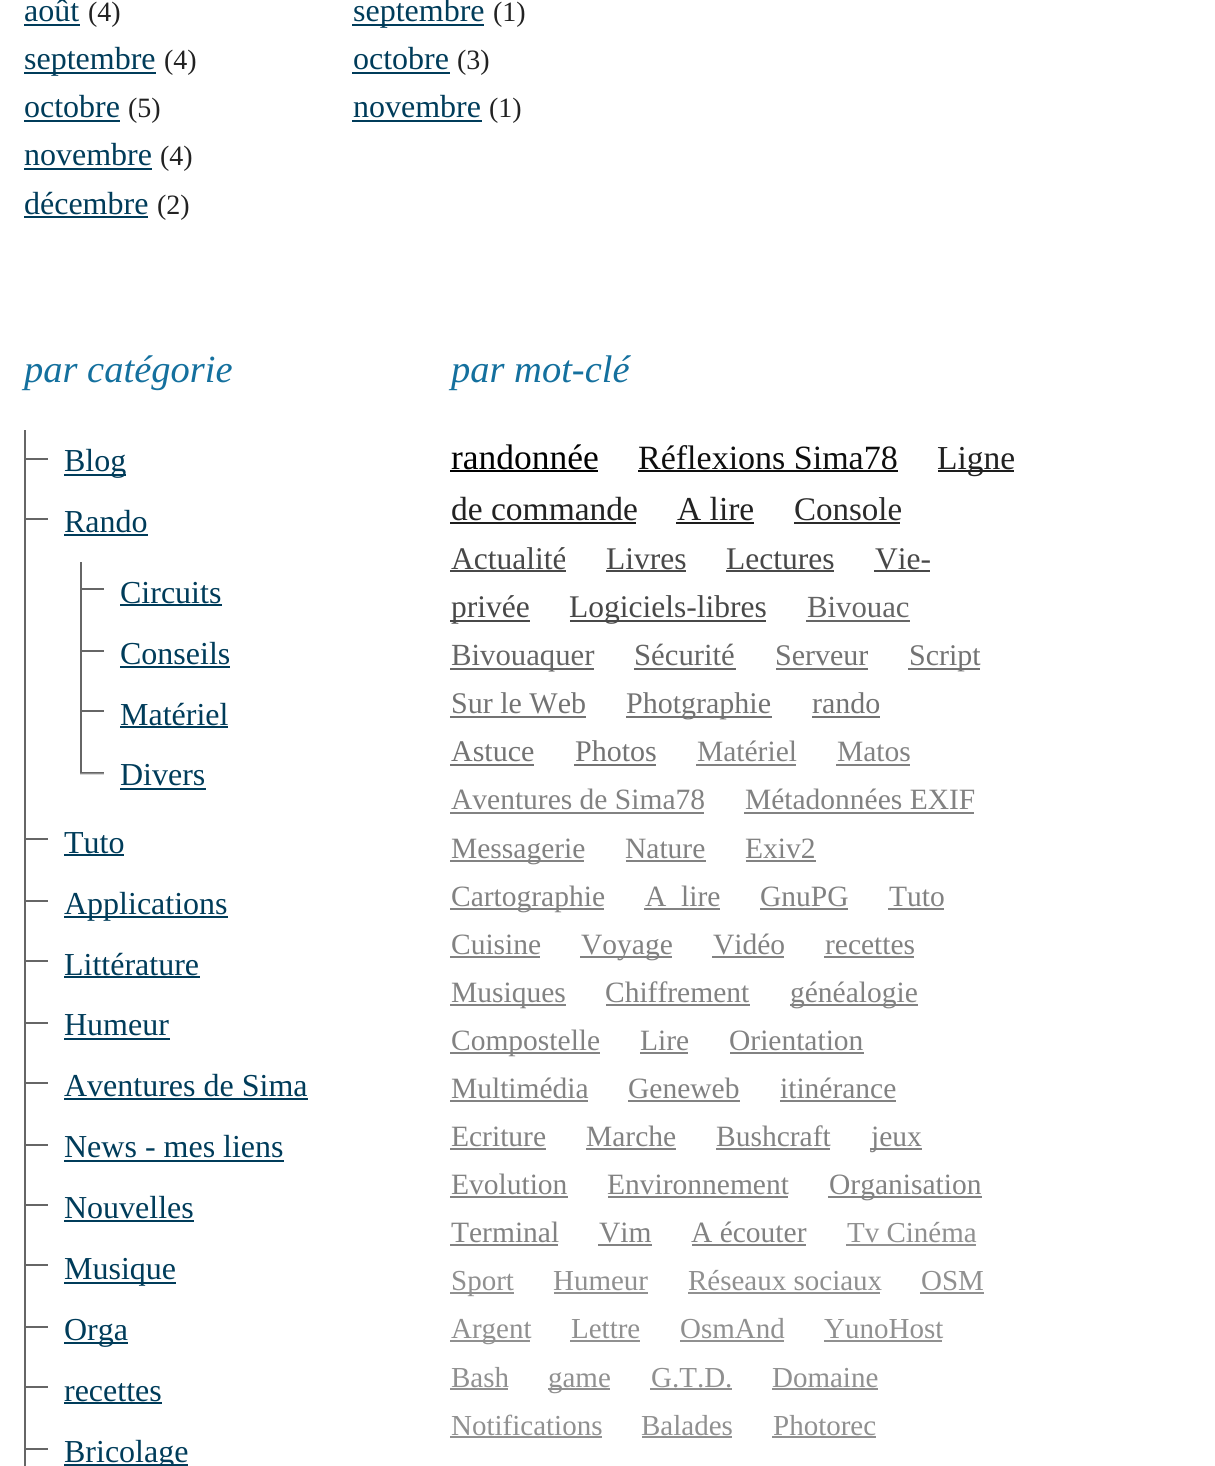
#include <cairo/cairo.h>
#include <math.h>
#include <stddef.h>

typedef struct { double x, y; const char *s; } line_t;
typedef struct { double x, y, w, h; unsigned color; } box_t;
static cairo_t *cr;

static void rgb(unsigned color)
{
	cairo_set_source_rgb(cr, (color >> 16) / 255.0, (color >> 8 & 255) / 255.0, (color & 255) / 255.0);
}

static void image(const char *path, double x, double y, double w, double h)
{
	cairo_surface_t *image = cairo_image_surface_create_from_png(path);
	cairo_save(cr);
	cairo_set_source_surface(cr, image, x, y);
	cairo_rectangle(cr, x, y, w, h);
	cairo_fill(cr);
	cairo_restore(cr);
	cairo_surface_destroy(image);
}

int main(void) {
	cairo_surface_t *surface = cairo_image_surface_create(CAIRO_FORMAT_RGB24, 1215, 1466);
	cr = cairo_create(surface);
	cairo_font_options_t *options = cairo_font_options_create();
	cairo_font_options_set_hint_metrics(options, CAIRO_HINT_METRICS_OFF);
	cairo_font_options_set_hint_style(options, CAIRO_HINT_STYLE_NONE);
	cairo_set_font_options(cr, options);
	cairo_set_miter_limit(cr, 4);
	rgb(0xffffff);
	cairo_paint(cr);
	{
		static const box_t items[] = {
			{24, 24, 56, 2, 0x003c5a},
			{24, 72, 132, 2, 0x003c5a},
			{24, 120, 96, 2, 0x003c5a},
			{24, 168, 128, 2, 0x003c5a},
			{24, 216, 124, 2, 0x003c5a},
			{352, 24, 132, 2, 0x003c5a},
			{352, 72, 98, 2, 0x003c5a},
			{352, 120, 130, 2, 0x003c5a},
			{24, 430, 2, 1036, 0x666666},
			{26, 458, 22, 2, 0x666666},
			{64, 474, 62, 2, 0x003c5a},
			{26, 518, 22, 2, 0x666666},
			{64, 534, 84, 2, 0x003c5a},
			{80, 562, 2, 210, 0x666666},
			{82, 588, 22, 2, 0x666666},
			{120, 604, 102, 2, 0x003c5a},
			{82, 650, 22, 2, 0x666666},
			{120, 666, 110, 2, 0x003c5a},
			{82, 710, 22, 2, 0x666666},
			{120, 726, 108, 2, 0x003c5a},
		};
		for (size_t i = 0; i < sizeof items / sizeof *items; i++) {
			rgb(items[i].color);
			cairo_rectangle(cr, items[i].x, items[i].y, items[i].w, items[i].h);
			cairo_fill(cr);
		}
	}
	image("img/1.png", 80, 772, 24, 34);
	{
		static const box_t items[] = {
			{120, 788, 86, 2, 0x003c5a},
			{26, 838, 22, 2, 0x666666},
			{64, 854, 60, 2, 0x003c5a},
			{26, 900, 22, 2, 0x666666},
			{64, 916, 164, 2, 0x003c5a},
			{26, 960, 22, 2, 0x666666},
			{64, 976, 136, 2, 0x003c5a},
			{26, 1022, 22, 2, 0x666666},
			{64, 1038, 106, 2, 0x003c5a},
			{26, 1082, 22, 2, 0x666666},
			{64, 1098, 244, 2, 0x003c5a},
			{26, 1144, 22, 2, 0x666666},
			{64, 1160, 220, 2, 0x003c5a},
			{26, 1204, 22, 2, 0x666666},
			{64, 1220, 130, 2, 0x003c5a},
			{26, 1264, 22, 2, 0x666666},
			{64, 1282, 112, 2, 0x003c5a},
			{26, 1326, 22, 2, 0x666666},
			{64, 1342, 64, 2, 0x003c5a},
			{26, 1386, 22, 2, 0x666666},
			{64, 1402, 98, 2, 0x003c5a},
			{26, 1448, 22, 2, 0x666666},
			{64, 1464, 124, 2, 0x003c5a},
			{450, 470, 148, 2, 0x000000},
			{638, 470, 260, 2, 0x0e0e0e},
			{938, 470, 76, 2, 0x1d1d1d},
			{450, 522, 186, 2, 0x1d1d1d},
			{676, 522, 78, 2, 0x1d1d1d},
			{794, 522, 106, 2, 0x2b2b2b},
			{450, 570, 116, 2, 0x484848},
			{606, 570, 80, 2, 0x484848},
			{726, 570, 108, 2, 0x484848},
			{874, 570, 56, 2, 0x484848},
			{450, 620, 80, 2, 0x484848},
			{570, 620, 196, 2, 0x484848},
			{806, 620, 104, 2, 0x656565},
			{450, 668, 144, 2, 0x656565},
			{634, 668, 102, 2, 0x656565},
			{776, 668, 92, 2, 0x737373},
			{908, 668, 72, 2, 0x737373},
			{450, 716, 136, 2, 0x737373},
			{626, 716, 146, 2, 0x737373},
			{812, 716, 68, 2, 0x737373},
			{450, 764, 84, 2, 0x737373},
			{574, 764, 82, 2, 0x737373},
			{696, 764, 100, 2, 0x828282},
			{836, 764, 74, 2, 0x828282},
			{450, 812, 254, 2, 0x828282},
			{744, 812, 230, 2, 0x828282},
			{450, 860, 134, 2, 0x828282},
			{626, 860, 80, 2, 0x828282},
			{746, 860, 70, 2, 0x828282},
			{450, 908, 154, 2, 0x828282},
			{644, 908, 76, 2, 0x828282},
			{760, 908, 88, 2, 0x828282},
			{888, 908, 56, 2, 0x828282},
			{450, 956, 90, 2, 0x828282},
			{580, 956, 92, 2, 0x828282},
			{712, 956, 72, 2, 0x828282},
			{824, 956, 90, 2, 0x828282},
			{450, 1004, 116, 2, 0x828282},
			{606, 1004, 144, 2, 0x828282},
			{790, 1004, 128, 2, 0x828282},
			{450, 1052, 150, 2, 0x828282},
			{640, 1052, 48, 2, 0x828282},
			{730, 1052, 134, 2, 0x828282},
			{450, 1100, 138, 2, 0x828282},
			{628, 1100, 112, 2, 0x828282},
			{780, 1100, 116, 2, 0x828282},
			{450, 1148, 96, 2, 0x828282},
			{586, 1148, 90, 2, 0x828282},
			{716, 1148, 114, 2, 0x828282},
			{870, 1148, 52, 2, 0x828282},
			{450, 1196, 118, 2, 0x828282},
			{608, 1196, 180, 2, 0x828282},
			{828, 1196, 154, 2, 0x828282},
			{450, 1244, 108, 2, 0x828282},
			{598, 1244, 54, 2, 0x828282},
			{692, 1244, 114, 2, 0x828282},
			{846, 1244, 130, 2, 0x909090},
			{450, 1292, 64, 2, 0x909090},
			{554, 1292, 94, 2, 0x909090},
			{688, 1292, 192, 2, 0x909090},
			{920, 1292, 64, 2, 0x909090},
			{450, 1340, 80, 2, 0x909090},
			{570, 1340, 70, 2, 0x909090},
			{680, 1340, 104, 2, 0x909090},
			{824, 1340, 118, 2, 0x909090},
			{450, 1388, 58, 2, 0x909090},
			{548, 1388, 62, 2, 0x909090},
			{650, 1388, 82, 2, 0x909090},
			{772, 1388, 106, 2, 0x909090},
			{450, 1436, 152, 2, 0x909090},
			{642, 1436, 90, 2, 0x909090},
			{772, 1436, 104, 2, 0x909090},
		};
		for (size_t i = 0; i < sizeof items / sizeof *items; i++) {
			rgb(items[i].color);
			cairo_rectangle(cr, items[i].x, items[i].y, items[i].w, items[i].h);
			cairo_fill(cr);
		}
	}
	cairo_select_font_face(cr, "Liberation Serif", CAIRO_FONT_SLANT_NORMAL, CAIRO_FONT_WEIGHT_NORMAL);
	cairo_set_font_size(cr, 32);
	rgb(0x003c5a);
	cairo_move_to(cr, 24, 21);
	cairo_show_text(cr, "août");
	cairo_set_font_size(cr, 28);
	rgb(0x222222);
	cairo_move_to(cr, 88, 21);
	cairo_show_text(cr, "(4)");
	cairo_set_font_size(cr, 32);
	rgb(0x003c5a);
	cairo_move_to(cr, 24, 69);
	cairo_show_text(cr, "septembre");
	cairo_set_font_size(cr, 28);
	rgb(0x222222);
	cairo_move_to(cr, 164, 69);
	cairo_show_text(cr, "(4)");
	cairo_set_font_size(cr, 32);
	rgb(0x003c5a);
	cairo_move_to(cr, 24, 117);
	cairo_show_text(cr, "octobre");
	cairo_set_font_size(cr, 28);
	rgb(0x222222);
	cairo_move_to(cr, 128, 117);
	cairo_show_text(cr, "(5)");
	cairo_set_font_size(cr, 32);
	rgb(0x003c5a);
	cairo_move_to(cr, 24, 165);
	cairo_show_text(cr, "novembre");
	cairo_set_font_size(cr, 28);
	rgb(0x222222);
	cairo_move_to(cr, 160, 165);
	cairo_show_text(cr, "(4)");
	cairo_set_font_size(cr, 32);
	rgb(0x003c5a);
	cairo_move_to(cr, 24, 214);
	cairo_show_text(cr, "décembre");
	cairo_set_font_size(cr, 28);
	rgb(0x222222);
	cairo_move_to(cr, 157, 214);
	cairo_show_text(cr, "(2)");
	cairo_set_font_size(cr, 32);
	rgb(0x003c5a);
	cairo_move_to(cr, 353, 21);
	cairo_show_text(cr, "septembre");
	cairo_set_font_size(cr, 28);
	rgb(0x222222);
	cairo_move_to(cr, 493, 21);
	cairo_show_text(cr, "(1)");
	cairo_set_font_size(cr, 32);
	rgb(0x003c5a);
	cairo_move_to(cr, 353, 69);
	cairo_show_text(cr, "octobre");
	cairo_set_font_size(cr, 28);
	rgb(0x222222);
	cairo_move_to(cr, 457, 69);
	cairo_show_text(cr, "(3)");
	cairo_set_font_size(cr, 32);
	rgb(0x003c5a);
	cairo_move_to(cr, 353, 117);
	cairo_show_text(cr, "novembre");
	cairo_set_font_size(cr, 28);
	rgb(0x222222);
	cairo_move_to(cr, 489, 117);
	cairo_show_text(cr, "(1)");
	cairo_select_font_face(cr, "Liberation Serif", CAIRO_FONT_SLANT_ITALIC, CAIRO_FONT_WEIGHT_NORMAL);
	cairo_set_font_size(cr, 38.5);
	rgb(0x14709e);
	cairo_move_to(cr, 24, 382);
	cairo_show_text(cr, "par catégorie");
	cairo_select_font_face(cr, "Liberation Serif", CAIRO_FONT_SLANT_NORMAL, CAIRO_FONT_WEIGHT_NORMAL);
	cairo_set_font_size(cr, 32);
	rgb(0x003c5a);
	{
		static const line_t items[] = {
			{64, 471, "Blog"},
			{64, 532, "Rando"},
			{120, 603, "Circuits"},
			{120, 664, "Conseils"},
			{120, 725, "Matériel"},
			{120, 785, "Divers"},
			{64, 853, "Tuto"},
			{64, 914, "Applications"},
			{64, 975, "Littérature"},
			{64, 1035, "Humeur"},
			{64, 1096, "Aventures de Sima"},
			{64, 1157, "News - mes liens"},
			{64, 1218, "Nouvelles"},
			{64, 1279, "Musique"},
			{64, 1340, "Orga"},
			{64, 1401, "recettes"},
			{64, 1462, "Bricolage"},
		};
		for (size_t i = 0; i < sizeof items / sizeof *items; i++) {
			cairo_move_to(cr, items[i].x, items[i].y);
			cairo_show_text(cr, items[i].s);
		}
	}
	cairo_select_font_face(cr, "Liberation Serif", CAIRO_FONT_SLANT_ITALIC, CAIRO_FONT_WEIGHT_NORMAL);
	cairo_set_font_size(cr, 38.5);
	rgb(0x14709e);
	cairo_move_to(cr, 451, 382);
	cairo_show_text(cr, "par mot-clé");
	cairo_select_font_face(cr, "Liberation Serif", CAIRO_FONT_SLANT_NORMAL, CAIRO_FONT_WEIGHT_NORMAL);
	cairo_set_font_size(cr, 35.5);
	rgb(0x000000);
	cairo_move_to(cr, 451, 469);
	cairo_show_text(cr, "randonnée");
	cairo_set_font_size(cr, 34);
	rgb(0x0e0e0e);
	cairo_move_to(cr, 638, 469);
	cairo_show_text(cr, "Réflexions Sima78");
	cairo_set_font_size(cr, 33.5);
	rgb(0x222222);
	{
		static const line_t items[] = {
			{937, 469, "Ligne"},
			{451, 520, "de commande"},
			{677, 520, "A lire"},
		};
		for (size_t i = 0; i < sizeof items / sizeof *items; i++) {
			cairo_move_to(cr, items[i].x, items[i].y);
			cairo_show_text(cr, items[i].s);
		}
	}
	cairo_set_font_size(cr, 33);
	rgb(0x2b2b2b);
	cairo_move_to(cr, 794, 520);
	cairo_show_text(cr, "Console");
	cairo_set_font_size(cr, 31.5);
	rgb(0x484848);
	{
		static const line_t items[] = {
			{451, 569, "Actualité"},
			{606, 569, "Livres"},
			{726, 569, "Lectures"},
			{875, 569, "Vie-"},
			{451, 617, "privée"},
			{569, 617, "Logiciels-libres"},
		};
		for (size_t i = 0; i < sizeof items / sizeof *items; i++) {
			cairo_move_to(cr, items[i].x, items[i].y);
			cairo_show_text(cr, items[i].s);
		}
	}
	cairo_set_font_size(cr, 30.75);
	rgb(0x656565);
	{
		static const line_t items[] = {
			{807, 617, "Bivouac"},
			{451, 665, "Bivouaquer"},
			{634, 665, "Sécurité"},
		};
		for (size_t i = 0; i < sizeof items / sizeof *items; i++) {
			cairo_move_to(cr, items[i].x, items[i].y);
			cairo_show_text(cr, items[i].s);
		}
	}
	cairo_set_font_size(cr, 30);
	rgb(0x737373);
	{
		static const line_t items[] = {
			{775, 665, "Serveur"},
			{909, 665, "Script"},
			{451, 713, "Sur le Web"},
			{626, 713, "Photgraphie"},
			{812, 713, "rando"},
			{451, 761, "Astuce"},
			{575, 761, "Photos"},
		};
		for (size_t i = 0; i < sizeof items / sizeof *items; i++) {
			cairo_move_to(cr, items[i].x, items[i].y);
			cairo_show_text(cr, items[i].s);
		}
	}
	cairo_set_font_size(cr, 29.5);
	rgb(0x828282);
	{
		static const line_t items[] = {
			{697, 761, "Matériel"},
			{837, 761, "Matos"},
			{451, 809, "Aventures de Sima78"},
			{745, 809, "Métadonnées EXIF"},
			{451, 858, "Messagerie"},
			{625, 858, "Nature"},
			{745, 858, "Exiv2"},
			{451, 906, "Cartographie"},
			{645, 906, "A_lire"},
			{760, 906, "GnuPG"},
			{889, 906, "Tuto"},
			{451, 954, "Cuisine"},
			{581, 954, "Voyage"},
			{713, 954, "Vidéo"},
			{825, 954, "recettes"},
			{451, 1002, "Musiques"},
			{605, 1002, "Chiffrement"},
			{790, 1002, "généalogie"},
			{451, 1050, "Compostelle"},
			{640, 1050, "Lire"},
			{729, 1050, "Orientation"},
			{451, 1098, "Multimédia"},
			{628, 1098, "Geneweb"},
			{780, 1098, "itinérance"},
			{451, 1146, "Ecriture"},
			{586, 1146, "Marche"},
			{716, 1146, "Bushcraft"},
			{871, 1146, "jeux"},
			{451, 1194, "Evolution"},
			{607, 1194, "Environnement"},
			{829, 1194, "Organisation"},
			{451, 1242, "Terminal"},
			{599, 1242, "Vim"},
			{691, 1242, "A écouter"},
		};
		for (size_t i = 0; i < sizeof items / sizeof *items; i++) {
			cairo_move_to(cr, items[i].x, items[i].y);
			cairo_show_text(cr, items[i].s);
		}
	}
	cairo_set_font_size(cr, 29);
	rgb(0x909090);
	{
		static const line_t items[] = {
			{847, 1242, "Tv Cinéma"},
			{451, 1290, "Sport"},
			{553, 1290, "Humeur"},
			{688, 1290, "Réseaux sociaux"},
			{921, 1290, "OSM"},
			{451, 1338, "Argent"},
			{571, 1338, "Lettre"},
			{680, 1338, "OsmAnd"},
			{824, 1338, "YunoHost"},
			{451, 1387, "Bash"},
			{548, 1387, "game"},
			{651, 1387, "G.T.D."},
			{772, 1387, "Domaine"},
			{451, 1435, "Notifications"},
			{641, 1435, "Balades"},
			{773, 1435, "Photorec"},
		};
		for (size_t i = 0; i < sizeof items / sizeof *items; i++) {
			cairo_move_to(cr, items[i].x, items[i].y);
			cairo_show_text(cr, items[i].s);
		}
	}
	cairo_surface_write_to_png(surface, "page.png");
	cairo_font_options_destroy(options);
	cairo_destroy(cr);
	cairo_surface_destroy(surface);
	return 0;
}
